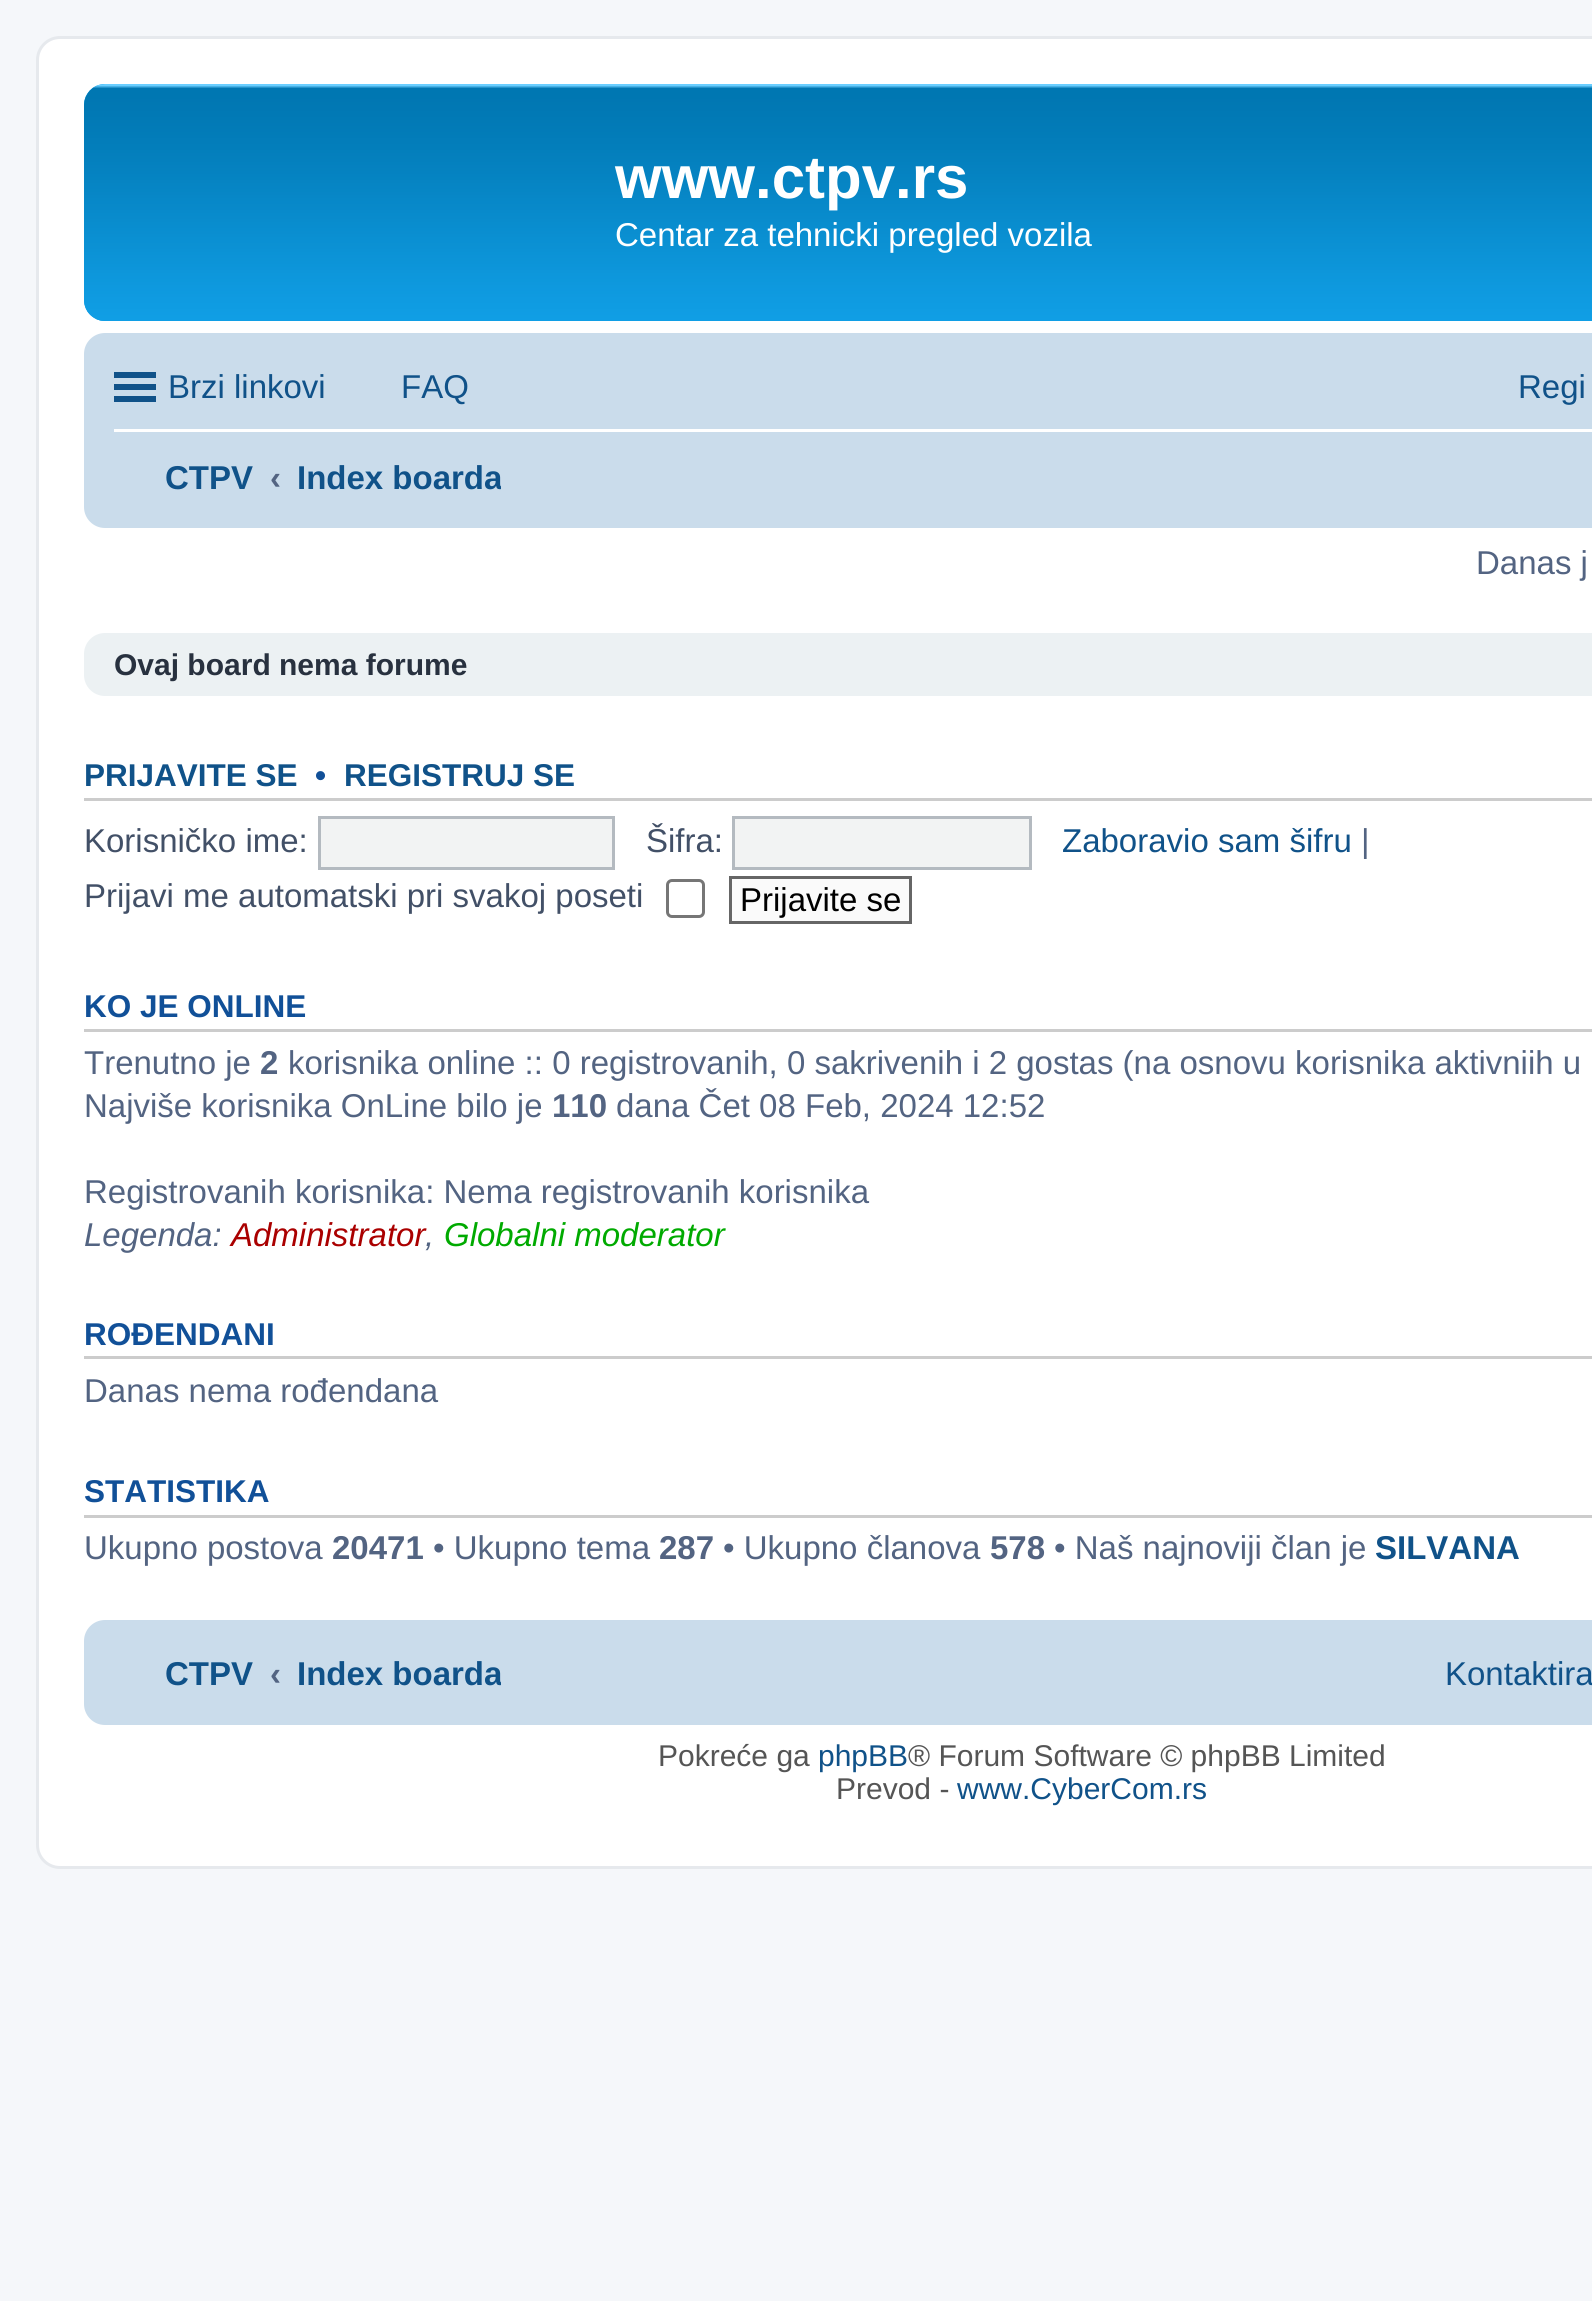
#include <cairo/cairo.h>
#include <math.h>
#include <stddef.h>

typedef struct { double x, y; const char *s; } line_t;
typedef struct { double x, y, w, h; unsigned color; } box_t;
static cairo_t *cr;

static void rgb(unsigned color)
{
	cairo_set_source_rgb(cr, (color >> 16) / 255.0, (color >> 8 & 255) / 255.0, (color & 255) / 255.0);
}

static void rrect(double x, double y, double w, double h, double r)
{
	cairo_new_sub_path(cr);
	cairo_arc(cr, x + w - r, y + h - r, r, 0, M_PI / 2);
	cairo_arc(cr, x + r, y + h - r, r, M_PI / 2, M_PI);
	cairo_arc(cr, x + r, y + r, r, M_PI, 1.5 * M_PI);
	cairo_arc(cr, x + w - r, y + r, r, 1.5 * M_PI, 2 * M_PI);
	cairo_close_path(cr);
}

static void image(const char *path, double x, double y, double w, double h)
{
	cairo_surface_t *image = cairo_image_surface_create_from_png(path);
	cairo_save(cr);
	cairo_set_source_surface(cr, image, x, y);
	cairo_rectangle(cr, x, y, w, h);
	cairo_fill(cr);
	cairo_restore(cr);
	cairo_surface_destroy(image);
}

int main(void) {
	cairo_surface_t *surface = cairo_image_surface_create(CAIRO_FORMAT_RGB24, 1592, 2301);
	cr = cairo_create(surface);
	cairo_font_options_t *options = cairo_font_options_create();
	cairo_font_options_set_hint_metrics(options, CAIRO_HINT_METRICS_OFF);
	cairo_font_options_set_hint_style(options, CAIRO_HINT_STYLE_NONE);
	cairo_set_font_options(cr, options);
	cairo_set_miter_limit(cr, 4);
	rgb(0xf5f7fa);
	cairo_paint(cr);
	rgb(0xffffff);
	rrect(37.5, 37.5, 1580, 1830, 22.5);
	cairo_fill_preserve(cr);
	rgb(0xe6e9ed);
	cairo_set_line_width(cr, 3);
	cairo_stroke(cr);
	rgb(0x12a3eb);
	rrect(84, 84, 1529, 237, 21);
	cairo_fill(cr);
	image("img/1.png", 84, 84, 1508, 237);
	rgb(0xcadceb);
	rrect(84, 333, 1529, 195, 21);
	cairo_fill(cr);
	{
		static const box_t items[] = {
			{114, 372, 42, 6, 0x105289},
			{114, 384, 42, 6, 0x105289},
			{114, 396, 42, 6, 0x105289},
			{114, 429, 1478, 3, 0xffffff},
		};
		for (size_t i = 0; i < sizeof items / sizeof *items; i++) {
			rgb(items[i].color);
			cairo_rectangle(cr, items[i].x, items[i].y, items[i].w, items[i].h);
			cairo_fill(cr);
		}
	}
	rgb(0xecf1f3);
	rrect(84, 633, 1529, 63, 21);
	cairo_fill(cr);
	rgb(0xcccccc);
	cairo_rectangle(cr, 84, 798, 1508, 3);
	cairo_fill(cr);
	rgb(0xf2f3f3);
	cairo_rectangle(cr, 319.5, 817.5, 294, 51);
	cairo_fill_preserve(cr);
	rgb(0xb4bac0);
	cairo_stroke(cr);
	rgb(0xf2f3f3);
	cairo_rectangle(cr, 733.5, 817.5, 297, 51);
	cairo_fill_preserve(cr);
	rgb(0xb4bac0);
	cairo_stroke(cr);
	rrect(667.5, 880.5, 36, 36, 4.5);
	rgb(0x767676);
	cairo_stroke(cr);
	rgb(0xfafafa);
	cairo_rectangle(cr, 730.5, 877.5, 180, 45);
	cairo_fill_preserve(cr);
	rgb(0x666666);
	cairo_stroke(cr);
	{
		static const box_t items[] = {
			{84, 1029, 1508, 3, 0xcccccc},
			{84, 1356, 1508, 3, 0xcccccc},
			{84, 1515, 1508, 3, 0xcccccc},
		};
		for (size_t i = 0; i < sizeof items / sizeof *items; i++) {
			rgb(items[i].color);
			cairo_rectangle(cr, items[i].x, items[i].y, items[i].w, items[i].h);
			cairo_fill(cr);
		}
	}
	rgb(0xcadceb);
	rrect(84, 1620, 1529, 105, 21);
	cairo_fill(cr);
	cairo_select_font_face(cr, "Liberation Sans", CAIRO_FONT_SLANT_NORMAL, CAIRO_FONT_WEIGHT_BOLD);
	cairo_set_font_size(cr, 60);
	rgb(0xffffff);
	cairo_move_to(cr, 615, 198);
	cairo_show_text(cr, "www.ctpv.rs");
	cairo_select_font_face(cr, "Liberation Sans", CAIRO_FONT_SLANT_NORMAL, CAIRO_FONT_WEIGHT_NORMAL);
	cairo_set_font_size(cr, 33);
	cairo_move_to(cr, 615, 246);
	cairo_show_text(cr, "Centar za tehnicki pregled vozila");
	rgb(0x105289);
	{
		static const line_t items[] = {
			{168, 398, "Brzi linkovi"},
			{401, 398, "FAQ"},
			{1518, 398, "Regi"},
		};
		for (size_t i = 0; i < sizeof items / sizeof *items; i++) {
			cairo_move_to(cr, items[i].x, items[i].y);
			cairo_show_text(cr, items[i].s);
		}
	}
	cairo_select_font_face(cr, "Liberation Sans", CAIRO_FONT_SLANT_NORMAL, CAIRO_FONT_WEIGHT_BOLD);
	cairo_move_to(cr, 165, 489);
	cairo_show_text(cr, "CTPV");
	rgb(0x536482);
	cairo_move_to(cr, 270, 489);
	cairo_show_text(cr, "‹");
	cairo_save(cr);
	cairo_rectangle(cr, 297, 441, 204, 72);
	cairo_clip(cr);
	rgb(0x105289);
	cairo_move_to(cr, 297, 489);
	cairo_show_text(cr, "Index boarda");
	cairo_restore(cr);
	cairo_select_font_face(cr, "Liberation Sans", CAIRO_FONT_SLANT_NORMAL, CAIRO_FONT_WEIGHT_NORMAL);
	cairo_move_to(cr, 1476, 574);
	cairo_show_text(cr, "Danas j");
	cairo_select_font_face(cr, "Liberation Sans", CAIRO_FONT_SLANT_NORMAL, CAIRO_FONT_WEIGHT_BOLD);
	cairo_set_font_size(cr, 30);
	rgb(0x28313f);
	cairo_move_to(cr, 114, 675);
	cairo_show_text(cr, "Ovaj board nema forume");
	cairo_set_font_size(cr, 31.5);
	rgb(0x105289);
	cairo_move_to(cr, 84, 786);
	cairo_show_text(cr, "PRIJAVITE SE");
	rgb(0x115098);
	cairo_move_to(cr, 315, 786);
	cairo_show_text(cr, "•");
	rgb(0x105289);
	cairo_move_to(cr, 344, 786);
	cairo_show_text(cr, "REGISTRUJ SE");
	cairo_select_font_face(cr, "Liberation Sans", CAIRO_FONT_SLANT_NORMAL, CAIRO_FONT_WEIGHT_NORMAL);
	cairo_set_font_size(cr, 33);
	rgb(0x425067);
	cairo_move_to(cr, 84, 852);
	cairo_show_text(cr, "Korisničko ime:");
	cairo_move_to(cr, 646, 852);
	cairo_show_text(cr, "Šifra:");
	rgb(0x105289);
	cairo_move_to(cr, 1062, 852);
	cairo_show_text(cr, "Zaboravio sam šifru");
	rgb(0x536482);
	cairo_move_to(cr, 1361, 852);
	cairo_show_text(cr, "|");
	rgb(0x425067);
	cairo_move_to(cr, 84, 907);
	cairo_show_text(cr, "Prijavi me automatski pri svakoj poseti");
	rgb(0x000000);
	cairo_move_to(cr, 740, 911);
	cairo_show_text(cr, "Prijavite se");
	cairo_select_font_face(cr, "Liberation Sans", CAIRO_FONT_SLANT_NORMAL, CAIRO_FONT_WEIGHT_BOLD);
	cairo_set_font_size(cr, 31.5);
	rgb(0x115098);
	cairo_move_to(cr, 84, 1017);
	cairo_show_text(cr, "KO JE ONLINE");
	cairo_select_font_face(cr, "Liberation Sans", CAIRO_FONT_SLANT_NORMAL, CAIRO_FONT_WEIGHT_NORMAL);
	cairo_set_font_size(cr, 33);
	rgb(0x536482);
	cairo_move_to(cr, 84, 1074);
	cairo_show_text(cr, "Trenutno je");
	cairo_select_font_face(cr, "Liberation Sans", CAIRO_FONT_SLANT_NORMAL, CAIRO_FONT_WEIGHT_BOLD);
	cairo_move_to(cr, 260, 1074);
	cairo_show_text(cr, "2");
	cairo_select_font_face(cr, "Liberation Sans", CAIRO_FONT_SLANT_NORMAL, CAIRO_FONT_WEIGHT_NORMAL);
	cairo_move_to(cr, 288, 1074);
	cairo_show_text(cr, "korisnika online :: 0 registrovanih, 0 sakrivenih i 2 gostas (na osnovu korisnika aktivniih u");
	cairo_move_to(cr, 84, 1117);
	cairo_show_text(cr, "Najviše korisnika OnLine bilo je");
	cairo_select_font_face(cr, "Liberation Sans", CAIRO_FONT_SLANT_NORMAL, CAIRO_FONT_WEIGHT_BOLD);
	cairo_move_to(cr, 552, 1117);
	cairo_show_text(cr, "110");
	cairo_select_font_face(cr, "Liberation Sans", CAIRO_FONT_SLANT_NORMAL, CAIRO_FONT_WEIGHT_NORMAL);
	cairo_move_to(cr, 616, 1117);
	cairo_show_text(cr, "dana Čet 08 Feb, 2024 12:52");
	cairo_move_to(cr, 84, 1203);
	cairo_show_text(cr, "Registrovanih korisnika: Nema registrovanih korisnika");
	cairo_select_font_face(cr, "Liberation Sans", CAIRO_FONT_SLANT_ITALIC, CAIRO_FONT_WEIGHT_NORMAL);
	cairo_move_to(cr, 84, 1246);
	cairo_show_text(cr, "Legenda:");
	rgb(0xaa0000);
	cairo_move_to(cr, 231, 1246);
	cairo_show_text(cr, "Administrator");
	rgb(0x536482);
	cairo_move_to(cr, 425, 1246);
	cairo_show_text(cr, ",");
	rgb(0x00aa00);
	cairo_move_to(cr, 444, 1246);
	cairo_show_text(cr, "Globalni moderator");
	cairo_select_font_face(cr, "Liberation Sans", CAIRO_FONT_SLANT_NORMAL, CAIRO_FONT_WEIGHT_BOLD);
	cairo_set_font_size(cr, 31.5);
	rgb(0x115098);
	cairo_move_to(cr, 84, 1345);
	cairo_show_text(cr, "ROĐENDANI");
	cairo_select_font_face(cr, "Liberation Sans", CAIRO_FONT_SLANT_NORMAL, CAIRO_FONT_WEIGHT_NORMAL);
	cairo_set_font_size(cr, 33);
	rgb(0x536482);
	cairo_move_to(cr, 84, 1402);
	cairo_show_text(cr, "Danas nema rođendana");
	cairo_select_font_face(cr, "Liberation Sans", CAIRO_FONT_SLANT_NORMAL, CAIRO_FONT_WEIGHT_BOLD);
	cairo_set_font_size(cr, 31.5);
	rgb(0x115098);
	cairo_move_to(cr, 84, 1502);
	cairo_show_text(cr, "STATISTIKA");
	cairo_select_font_face(cr, "Liberation Sans", CAIRO_FONT_SLANT_NORMAL, CAIRO_FONT_WEIGHT_NORMAL);
	cairo_set_font_size(cr, 33);
	rgb(0x536482);
	cairo_move_to(cr, 84, 1559);
	cairo_show_text(cr, "Ukupno postova");
	cairo_select_font_face(cr, "Liberation Sans", CAIRO_FONT_SLANT_NORMAL, CAIRO_FONT_WEIGHT_BOLD);
	cairo_move_to(cr, 332, 1559);
	cairo_show_text(cr, "20471");
	cairo_select_font_face(cr, "Liberation Sans", CAIRO_FONT_SLANT_NORMAL, CAIRO_FONT_WEIGHT_NORMAL);
	cairo_move_to(cr, 433, 1559);
	cairo_show_text(cr, "• Ukupno tema");
	cairo_select_font_face(cr, "Liberation Sans", CAIRO_FONT_SLANT_NORMAL, CAIRO_FONT_WEIGHT_BOLD);
	cairo_move_to(cr, 659, 1559);
	cairo_show_text(cr, "287");
	cairo_select_font_face(cr, "Liberation Sans", CAIRO_FONT_SLANT_NORMAL, CAIRO_FONT_WEIGHT_NORMAL);
	cairo_move_to(cr, 723, 1559);
	cairo_show_text(cr, "• Ukupno članova");
	cairo_select_font_face(cr, "Liberation Sans", CAIRO_FONT_SLANT_NORMAL, CAIRO_FONT_WEIGHT_BOLD);
	cairo_move_to(cr, 990, 1559);
	cairo_show_text(cr, "578");
	cairo_select_font_face(cr, "Liberation Sans", CAIRO_FONT_SLANT_NORMAL, CAIRO_FONT_WEIGHT_NORMAL);
	cairo_move_to(cr, 1054, 1559);
	cairo_show_text(cr, "• Naš najnoviji član je");
	cairo_select_font_face(cr, "Liberation Sans", CAIRO_FONT_SLANT_NORMAL, CAIRO_FONT_WEIGHT_BOLD);
	rgb(0x105289);
	cairo_move_to(cr, 1375, 1559);
	cairo_show_text(cr, "SILVANA");
	cairo_move_to(cr, 165, 1685);
	cairo_show_text(cr, "CTPV");
	rgb(0x536482);
	cairo_move_to(cr, 270, 1685);
	cairo_show_text(cr, "‹");
	cairo_save(cr);
	cairo_rectangle(cr, 297, 1638, 204, 72);
	cairo_clip(cr);
	rgb(0x105289);
	cairo_move_to(cr, 297, 1685);
	cairo_show_text(cr, "Index boarda");
	cairo_restore(cr);
	cairo_select_font_face(cr, "Liberation Sans", CAIRO_FONT_SLANT_NORMAL, CAIRO_FONT_WEIGHT_NORMAL);
	rgb(0x105289);
	cairo_move_to(cr, 1445, 1685);
	cairo_show_text(cr, "Kontaktira");
	cairo_set_font_size(cr, 30);
	rgb(0x555555);
	cairo_move_to(cr, 658, 1766);
	cairo_show_text(cr, "Pokreće ga");
	rgb(0x105289);
	cairo_move_to(cr, 818, 1766);
	cairo_show_text(cr, "phpBB");
	rgb(0x555555);
	cairo_move_to(cr, 908, 1766);
	cairo_show_text(cr, "® Forum Software © phpBB Limited");
	cairo_move_to(cr, 836, 1799);
	cairo_show_text(cr, "Prevod -");
	rgb(0x105289);
	cairo_move_to(cr, 957, 1799);
	cairo_show_text(cr, "www.CyberCom.rs");
	cairo_surface_write_to_png(surface, "page.png");
	cairo_font_options_destroy(options);
	cairo_destroy(cr);
	cairo_surface_destroy(surface);
	return 0;
}
